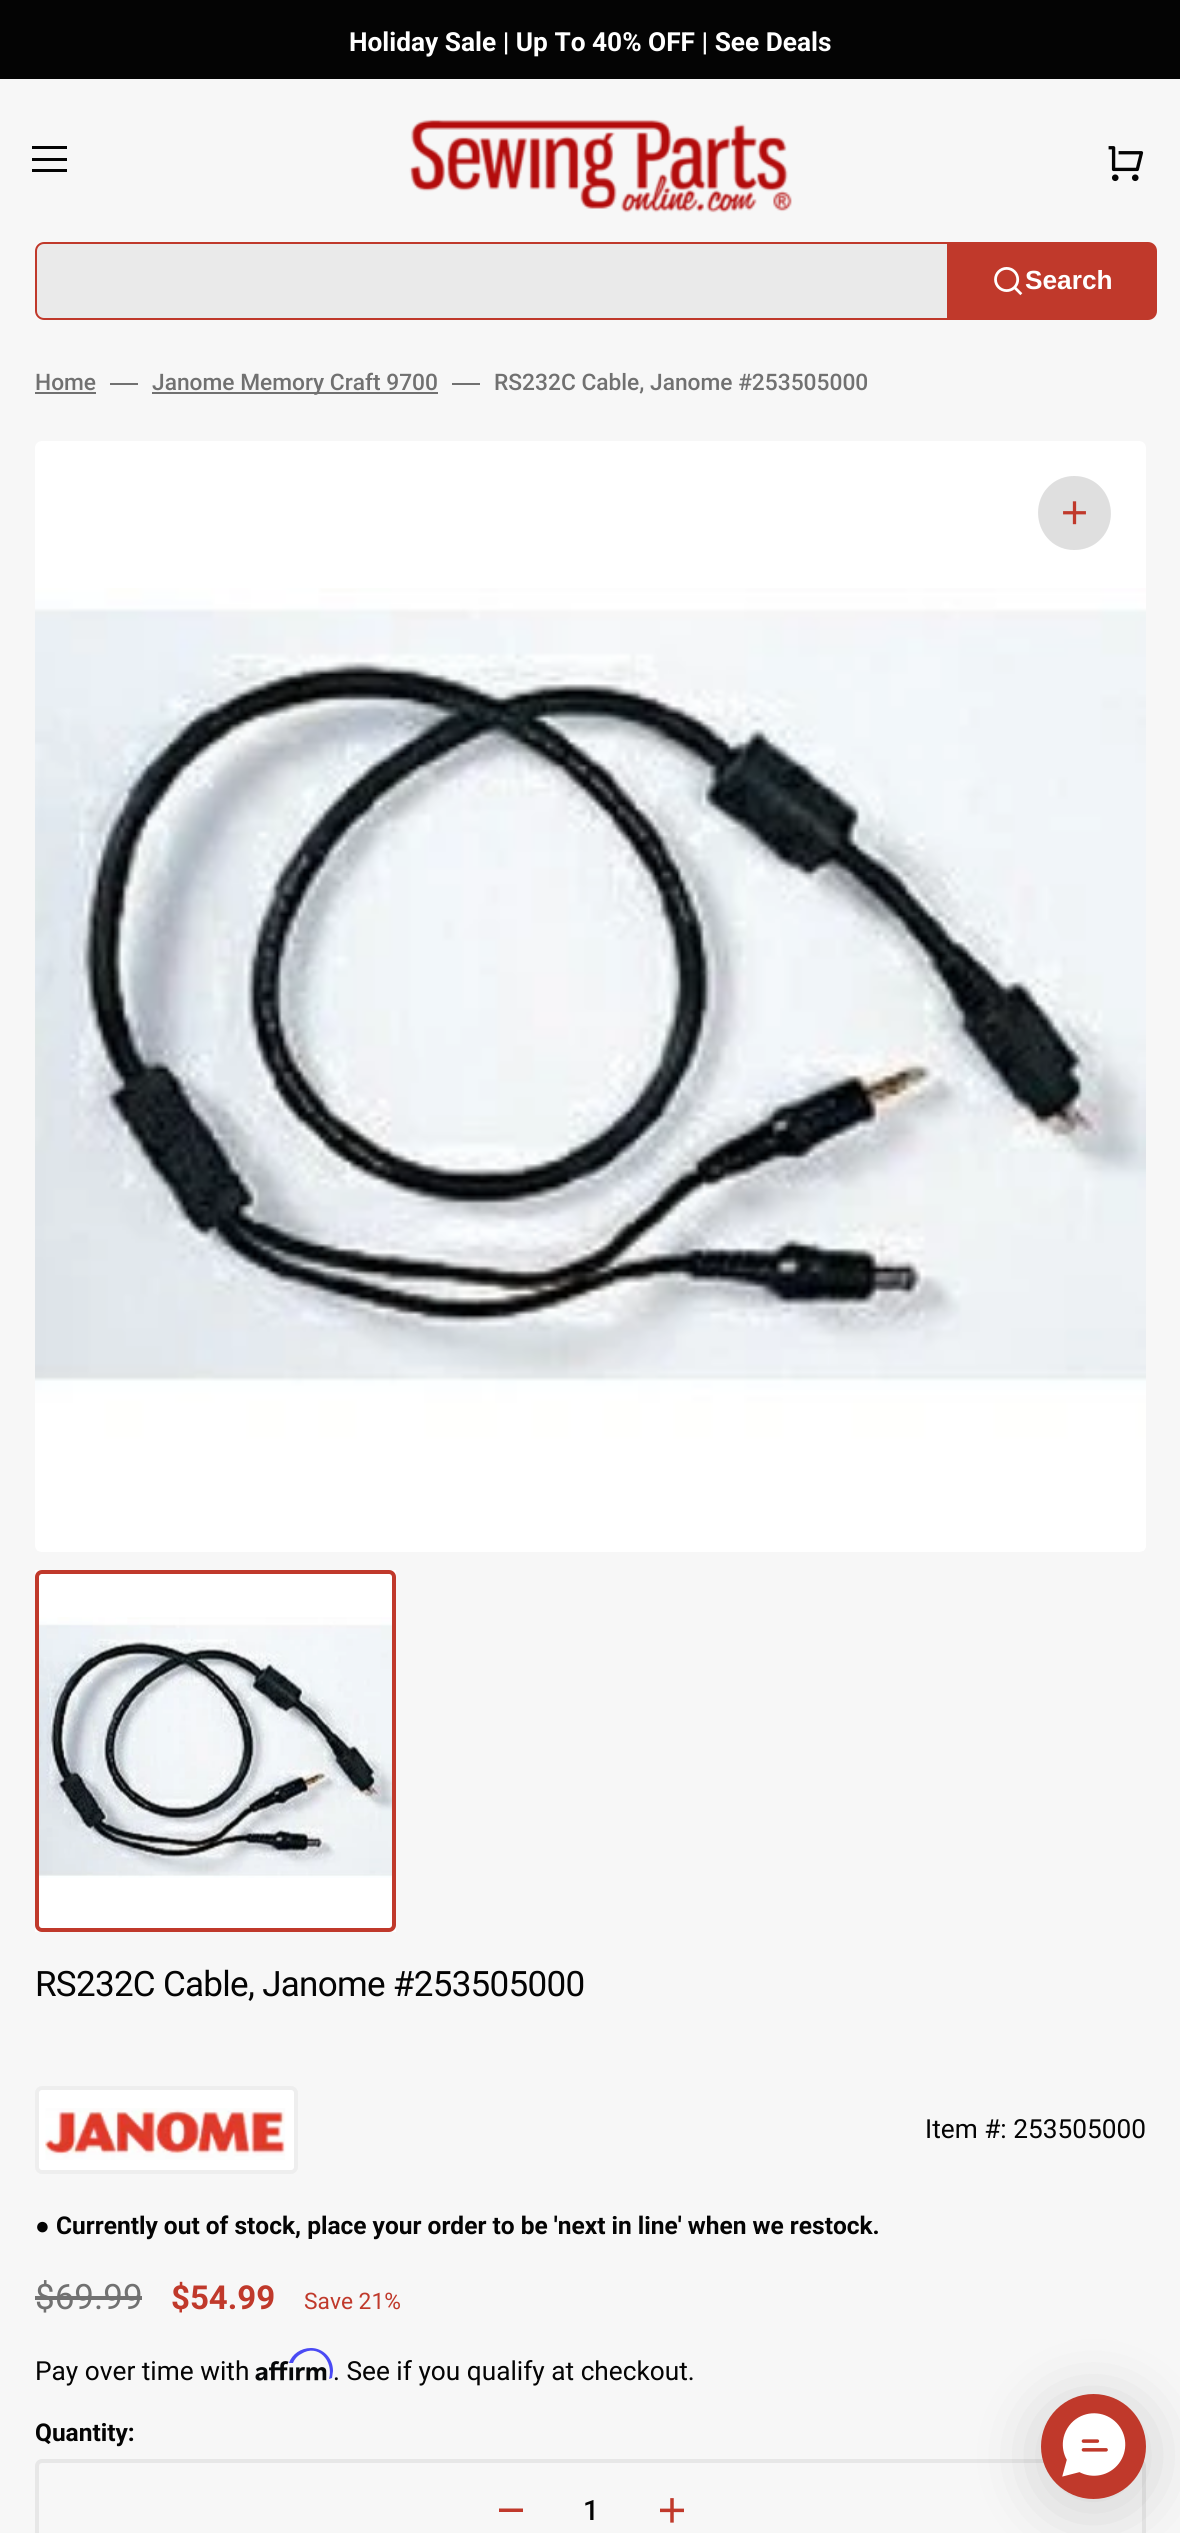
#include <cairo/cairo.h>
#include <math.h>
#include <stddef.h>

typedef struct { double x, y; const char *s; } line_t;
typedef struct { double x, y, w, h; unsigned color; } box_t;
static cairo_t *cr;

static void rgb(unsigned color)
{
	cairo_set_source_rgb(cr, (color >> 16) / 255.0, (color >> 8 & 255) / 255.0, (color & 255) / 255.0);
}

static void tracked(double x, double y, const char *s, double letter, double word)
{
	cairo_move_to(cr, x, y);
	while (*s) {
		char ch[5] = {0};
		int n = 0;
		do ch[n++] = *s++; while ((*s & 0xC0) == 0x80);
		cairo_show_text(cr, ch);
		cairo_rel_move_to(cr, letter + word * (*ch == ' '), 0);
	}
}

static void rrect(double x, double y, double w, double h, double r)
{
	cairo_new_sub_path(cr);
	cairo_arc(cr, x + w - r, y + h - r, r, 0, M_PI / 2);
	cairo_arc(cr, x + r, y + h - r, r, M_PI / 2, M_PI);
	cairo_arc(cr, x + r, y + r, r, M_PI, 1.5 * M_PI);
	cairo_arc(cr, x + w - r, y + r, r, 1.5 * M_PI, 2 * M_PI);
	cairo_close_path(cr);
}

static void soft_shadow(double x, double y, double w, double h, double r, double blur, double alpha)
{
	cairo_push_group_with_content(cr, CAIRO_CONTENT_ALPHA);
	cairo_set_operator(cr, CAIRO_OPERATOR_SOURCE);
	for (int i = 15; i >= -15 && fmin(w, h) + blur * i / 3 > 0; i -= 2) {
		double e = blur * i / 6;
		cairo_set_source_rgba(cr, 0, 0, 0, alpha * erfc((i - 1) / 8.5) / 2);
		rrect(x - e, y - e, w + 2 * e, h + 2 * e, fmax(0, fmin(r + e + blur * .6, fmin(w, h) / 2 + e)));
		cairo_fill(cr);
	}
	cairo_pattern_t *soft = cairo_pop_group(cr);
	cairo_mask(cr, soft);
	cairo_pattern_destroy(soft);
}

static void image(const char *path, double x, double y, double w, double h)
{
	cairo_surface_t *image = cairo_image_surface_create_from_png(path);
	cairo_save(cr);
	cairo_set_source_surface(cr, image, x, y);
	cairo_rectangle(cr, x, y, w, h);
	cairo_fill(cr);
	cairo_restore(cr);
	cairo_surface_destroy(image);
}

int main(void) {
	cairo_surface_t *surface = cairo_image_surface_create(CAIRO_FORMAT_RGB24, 1180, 2533);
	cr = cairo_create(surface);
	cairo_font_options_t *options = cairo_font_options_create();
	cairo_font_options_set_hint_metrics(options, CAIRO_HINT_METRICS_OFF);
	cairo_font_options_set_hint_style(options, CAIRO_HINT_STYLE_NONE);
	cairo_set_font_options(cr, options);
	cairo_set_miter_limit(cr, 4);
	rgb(0xf7f7f7);
	cairo_paint(cr);
	{
		static const box_t items[] = {
			{0, 0, 1180, 79, 0x040404},
			{32, 146, 35, 3, 0x040404},
			{32, 158, 35, 3, 0x040404},
			{32, 169, 35, 3, 0x040404},
		};
		for (size_t i = 0; i < sizeof items / sizeof *items; i++) {
			rgb(items[i].color);
			cairo_rectangle(cr, items[i].x, items[i].y, items[i].w, items[i].h);
			cairo_fill(cr);
		}
	}
	image("img/1.png", 409, 119, 383, 94);
	image("img/2.png", 1108, 146, 36, 36);
	rgb(0xffffff);
	rrect(35, 242, 1111, 78, 7);
	cairo_fill(cr);
	rgb(0xeaeaea);
	rrect(36, 243, 966, 76, 8);
	cairo_fill_preserve(cr);
	rgb(0xc0392b);
	cairo_stroke(cr);
	cairo_new_path(cr);
	cairo_move_to(cr, 947, 242);
	cairo_line_to(cr, 1148, 242);
	cairo_curve_to(cr, 1153, 242, 1157, 246, 1157, 251);
	cairo_line_to(cr, 1157, 311);
	cairo_curve_to(cr, 1157, 316, 1153, 320, 1148, 320);
	cairo_line_to(cr, 947, 320);
	cairo_close_path(cr);
	cairo_fill(cr);
	image("img/3.png", 994, 267, 29, 29);
	{
		static const box_t items[] = {
			{35, 392, 61, 2, 0x717171},
			{110, 383, 28, 2, 0x717171},
			{152, 392, 286, 2, 0x717171},
			{452, 383, 28, 2, 0x717171},
		};
		for (size_t i = 0; i < sizeof items / sizeof *items; i++) {
			rgb(items[i].color);
			cairo_rectangle(cr, items[i].x, items[i].y, items[i].w, items[i].h);
			cairo_fill(cr);
		}
	}
	rgb(0xffffff);
	rrect(35, 441, 1111, 1111, 7);
	cairo_fill(cr);
	image("img/4.png", 35, 588, 1111, 963);
	rgb(0xf7f7f7);
	rrect(1038, 476, 73, 74, 36.5);
	cairo_fill(cr);
	cairo_set_source_rgba(cr, 0.016, 0.016, 0.016, 0.1);
	cairo_new_path(cr);
	cairo_move_to(cr, 1074, 476);
	cairo_curve_to(cr, 1111, 476, 1124, 524, 1095, 544);
	cairo_curve_to(cr, 1089, 548, 1082, 550, 1074, 550);
	cairo_curve_to(cr, 1038, 550, 1025, 502, 1054, 482);
	cairo_curve_to(cr, 1060, 478, 1067, 476, 1074, 476);
	cairo_close_path(cr);
	cairo_fill(cr);
	image("img/5.png", 1063, 501, 23, 24);
	rgb(0xffffff);
	cairo_rectangle(cr, 35, 1570, 361, 362);
	cairo_fill(cr);
	image("img/6.png", 39, 1617, 353, 261);
	rrect(37, 1572, 357, 358, 5);
	rgb(0xc0392b);
	cairo_set_line_width(cr, 4);
	cairo_stroke(cr);
	rgb(0xffffff);
	rrect(37, 2088, 259, 84, 5);
	cairo_fill_preserve(cr);
	rgb(0xeeeeee);
	cairo_stroke(cr);
	image("img/7.png", 45, 2108, 241, 52);
	rgb(0x717171);
	cairo_rectangle(cr, 35, 2296, 107, 4);
	cairo_fill(cr);
	image("img/8.png", 255, 2361, 72, 20);
	rgb(0x4a4af4);
	cairo_new_path(cr);
	cairo_move_to(cr, 311, 2348);
	cairo_curve_to(cr, 301, 2348, 292, 2354, 289, 2363);
	cairo_line_to(cr, 293, 2363);
	cairo_curve_to(cr, 294, 2360, 297, 2356, 301, 2354);
	cairo_curve_to(cr, 318, 2343, 334, 2361, 329, 2379);
	cairo_line_to(cr, 332, 2378);
	cairo_line_to(cr, 333, 2371);
	cairo_curve_to(cr, 333, 2358, 323, 2348, 311, 2348);
	cairo_close_path(cr);
	cairo_fill(cr);
	rrect(37, 2461, 1107, 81, 5);
	rgb(0xe7e7e7);
	cairo_stroke(cr);
	rgb(0xc0392b);
	cairo_new_path(cr);
	cairo_move_to(cr, 509, 2508.5);
	cairo_line_to(cr, 523, 2508.5);
	cairo_line_to(cr, 523, 2512);
	cairo_line_to(cr, 499, 2512);
	cairo_line_to(cr, 499, 2508.5);
	cairo_close_path(cr);
	cairo_fill(cr);
	image("img/9.png", 660, 2498, 24, 25);
	rgb(0x000000);
	soft_shadow(1041, 2403, 105, 105, 52.5, 35, 0.16);
	rgb(0xc0392b);
	cairo_arc(cr, 1093.5, 2446.5, 52.5, 0, 2 * M_PI);
	cairo_fill(cr);
	image("img/10.png", 1062, 2413, 64, 64);
	cairo_select_font_face(cr, "Roboto", CAIRO_FONT_SLANT_NORMAL, CAIRO_FONT_WEIGHT_BOLD);
	cairo_set_font_size(cr, 26.25);
	rgb(0xffffff);
	cairo_move_to(cr, 349, 51);
	cairo_show_text(cr, "Holiday Sale | Up To 40% OFF | See Deals");
	cairo_select_font_face(cr, "Liberation Sans", CAIRO_FONT_SLANT_NORMAL, CAIRO_FONT_WEIGHT_BOLD);
	cairo_move_to(cr, 1025, 289);
	cairo_show_text(cr, "Search");
	cairo_select_font_face(cr, "Roboto Medium", CAIRO_FONT_SLANT_NORMAL, CAIRO_FONT_WEIGHT_NORMAL);
	cairo_set_font_size(cr, 22.75);
	rgb(0x717171);
	{
		static const line_t items[] = {
			{35, 390, "Home"},
			{152, 390, "Janome Memory Craft 9700"},
			{494, 390, "RS232C Cable, Janome #253505000"},
		};
		for (size_t i = 0; i < sizeof items / sizeof *items; i++) {
			cairo_move_to(cr, items[i].x, items[i].y);
			cairo_show_text(cr, items[i].s);
		}
	}
	cairo_select_font_face(cr, "Roboto", CAIRO_FONT_SLANT_NORMAL, CAIRO_FONT_WEIGHT_NORMAL);
	cairo_set_font_size(cr, 35);
	rgb(0x040404);
	tracked(35, 1996, "RS232C Cable, Janome #253505000", -0.7, 0);
	cairo_set_font_size(cr, 26.25);
	cairo_move_to(cr, 925, 2138);
	cairo_show_text(cr, "Item #: 253505000");
	cairo_select_font_face(cr, "Liberation Sans", CAIRO_FONT_SLANT_NORMAL, CAIRO_FONT_WEIGHT_BOLD);
	cairo_set_font_size(cr, 24.5);
	cairo_move_to(cr, 35, 2234);
	cairo_show_text(cr, "●");
	cairo_select_font_face(cr, "Roboto", CAIRO_FONT_SLANT_NORMAL, CAIRO_FONT_WEIGHT_BOLD);
	cairo_move_to(cr, 56, 2234);
	cairo_show_text(cr, "Currently out of stock, place your order to be 'next in line' when we restock.");
	cairo_select_font_face(cr, "Roboto", CAIRO_FONT_SLANT_NORMAL, CAIRO_FONT_WEIGHT_NORMAL);
	cairo_set_font_size(cr, 35);
	rgb(0x717171);
	cairo_move_to(cr, 35, 2309);
	cairo_show_text(cr, "$69.99");
	cairo_select_font_face(cr, "Roboto", CAIRO_FONT_SLANT_NORMAL, CAIRO_FONT_WEIGHT_BOLD);
	cairo_set_font_size(cr, 33);
	rgb(0xc0392b);
	cairo_move_to(cr, 171, 2309);
	cairo_show_text(cr, "$54.99");
	cairo_select_font_face(cr, "Roboto", CAIRO_FONT_SLANT_NORMAL, CAIRO_FONT_WEIGHT_NORMAL);
	cairo_set_font_size(cr, 22.75);
	cairo_move_to(cr, 304, 2309);
	cairo_show_text(cr, "Save 21%");
	cairo_set_font_size(cr, 26.25);
	rgb(0x040404);
	cairo_move_to(cr, 35, 2380);
	cairo_show_text(cr, "Pay over time with");
	cairo_move_to(cr, 333, 2380);
	cairo_show_text(cr, ". See if you qualify at checkout.");
	cairo_select_font_face(cr, "Roboto", CAIRO_FONT_SLANT_NORMAL, CAIRO_FONT_WEIGHT_BOLD);
	cairo_set_font_size(cr, 24.5);
	cairo_move_to(cr, 35, 2441);
	cairo_show_text(cr, "Quantity:");
	cairo_select_font_face(cr, "Roboto Medium", CAIRO_FONT_SLANT_NORMAL, CAIRO_FONT_WEIGHT_NORMAL);
	cairo_set_font_size(cr, 28);
	cairo_move_to(cr, 583, 2520);
	cairo_show_text(cr, "1");
	cairo_surface_write_to_png(surface, "page.png");
	cairo_font_options_destroy(options);
	cairo_destroy(cr);
	cairo_surface_destroy(surface);
	return 0;
}
